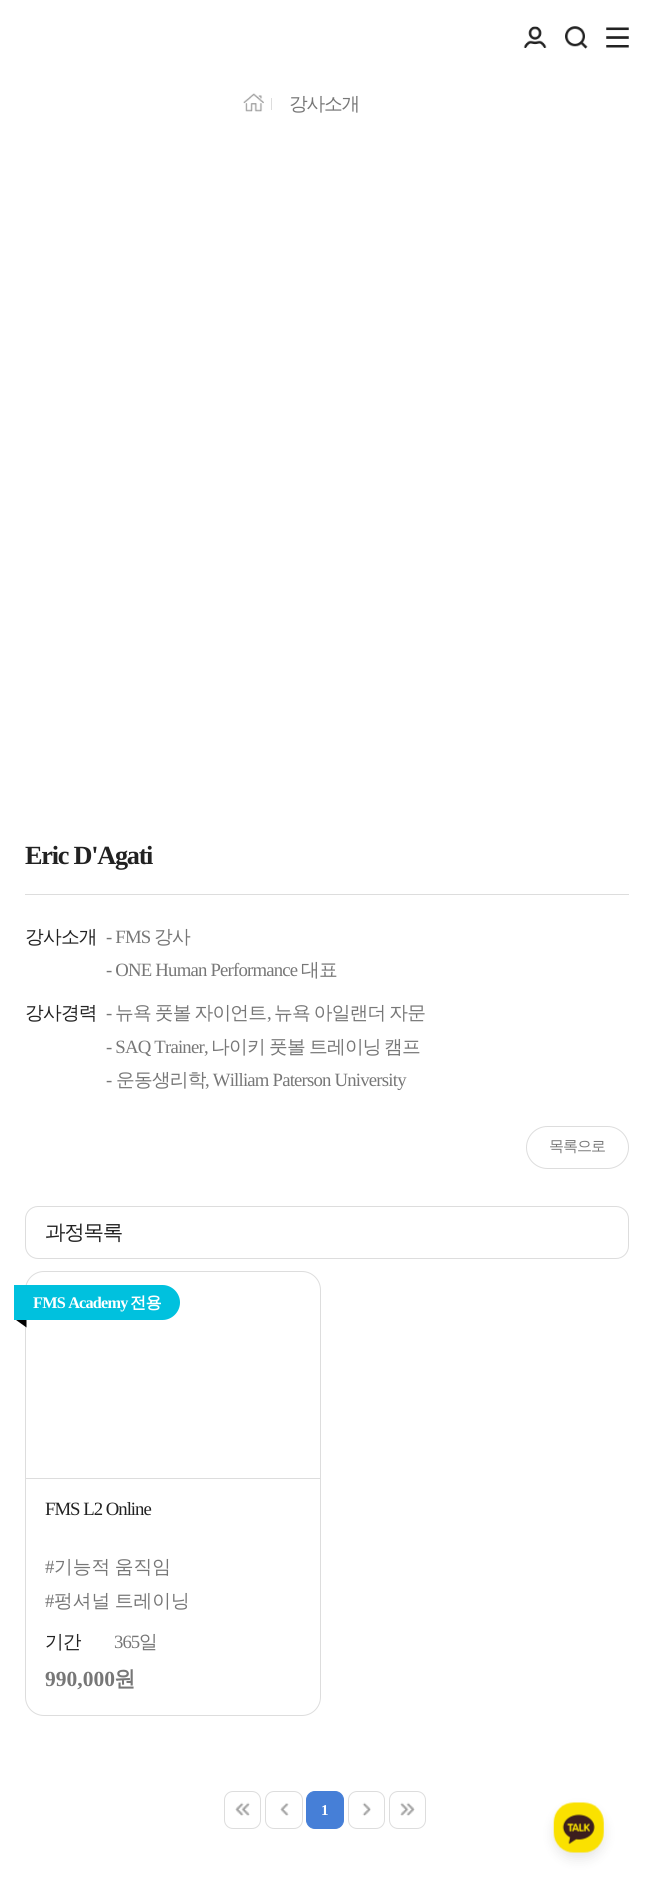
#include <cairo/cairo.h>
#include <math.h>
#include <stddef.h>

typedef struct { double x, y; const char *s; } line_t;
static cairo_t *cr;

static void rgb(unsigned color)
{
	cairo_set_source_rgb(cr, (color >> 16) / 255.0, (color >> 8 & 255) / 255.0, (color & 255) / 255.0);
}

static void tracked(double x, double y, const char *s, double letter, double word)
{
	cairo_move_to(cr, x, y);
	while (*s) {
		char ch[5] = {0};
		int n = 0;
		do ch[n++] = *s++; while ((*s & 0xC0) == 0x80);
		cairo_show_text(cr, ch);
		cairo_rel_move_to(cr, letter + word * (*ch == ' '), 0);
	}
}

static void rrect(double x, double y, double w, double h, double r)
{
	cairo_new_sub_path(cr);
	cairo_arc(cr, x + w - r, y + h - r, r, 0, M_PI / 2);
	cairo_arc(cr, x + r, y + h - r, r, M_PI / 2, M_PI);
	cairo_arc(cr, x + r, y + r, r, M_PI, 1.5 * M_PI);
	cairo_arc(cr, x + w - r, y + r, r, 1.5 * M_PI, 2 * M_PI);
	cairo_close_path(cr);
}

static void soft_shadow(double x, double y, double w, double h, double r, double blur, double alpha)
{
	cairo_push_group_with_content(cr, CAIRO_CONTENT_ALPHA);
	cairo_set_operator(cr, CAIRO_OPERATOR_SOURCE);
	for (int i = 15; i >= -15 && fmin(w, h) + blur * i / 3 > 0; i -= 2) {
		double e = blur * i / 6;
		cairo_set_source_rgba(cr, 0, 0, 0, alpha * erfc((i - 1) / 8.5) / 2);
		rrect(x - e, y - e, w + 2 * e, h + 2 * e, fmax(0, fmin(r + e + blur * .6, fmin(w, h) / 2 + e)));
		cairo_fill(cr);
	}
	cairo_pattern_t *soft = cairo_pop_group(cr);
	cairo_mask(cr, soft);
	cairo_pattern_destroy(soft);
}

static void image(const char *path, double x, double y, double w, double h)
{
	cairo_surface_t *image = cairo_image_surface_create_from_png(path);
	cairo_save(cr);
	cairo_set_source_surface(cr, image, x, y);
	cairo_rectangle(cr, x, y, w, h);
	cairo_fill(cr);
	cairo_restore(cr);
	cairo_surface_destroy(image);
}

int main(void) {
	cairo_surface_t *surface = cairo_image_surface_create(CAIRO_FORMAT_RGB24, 653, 1889);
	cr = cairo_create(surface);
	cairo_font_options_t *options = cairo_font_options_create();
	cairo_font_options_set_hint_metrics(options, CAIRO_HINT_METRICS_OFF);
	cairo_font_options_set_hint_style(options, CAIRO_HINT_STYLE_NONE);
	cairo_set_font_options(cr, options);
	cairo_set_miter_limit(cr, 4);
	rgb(0xffffff);
	cairo_paint(cr);
	image("img/1.png", 523, 26, 24, 22);
	image("img/2.png", 565, 26, 23, 23);
	image("img/3.png", 606, 27, 23, 21);
	image("img/4.png", 243, 93, 21, 19);
	rgb(0xdddddd);
	cairo_rectangle(cr, 271, 98, 1, 12);
	cairo_fill(cr);
	cairo_rectangle(cr, 25, 894, 604, 1);
	cairo_fill(cr);
	rrect(526.5, 1126.5, 102, 42, 21);
	cairo_set_line_width(cr, 1);
	cairo_stroke(cr);
	rrect(25.5, 1206.5, 603, 52, 12.5);
	cairo_stroke(cr);
	rrect(25.5, 1271.5, 295, 444, 18.5);
	cairo_stroke(cr);
	cairo_rectangle(cr, 26, 1478, 294, 1);
	cairo_fill(cr);
	rgb(0x00c1de);
	cairo_new_path(cr);
	cairo_move_to(cr, 14, 1285);
	cairo_line_to(cr, 162.5, 1285);
	cairo_curve_to(cr, 172, 1285, 180, 1293, 180, 1302.5);
	cairo_curve_to(cr, 180, 1312, 172, 1320, 162.5, 1320);
	cairo_line_to(cr, 14, 1320);
	cairo_close_path(cr);
	cairo_fill(cr);
	rgb(0x000000);
	cairo_new_path(cr);
	cairo_move_to(cr, 26.5, 1320);
	cairo_line_to(cr, 26.5, 1327.5);
	cairo_line_to(cr, 16, 1320);
	cairo_close_path(cr);
	cairo_fill(cr);
	image("img/5.png", 235, 1802, 15, 14);
	rrect(224.5, 1791.5, 36, 37, 8.5);
	rgb(0xdddddd);
	cairo_stroke(cr);
	image("img/6.png", 280, 1803, 9, 13);
	rrect(265.5, 1791.5, 37, 37, 8.5);
	cairo_stroke(cr);
	rgb(0x467fd7);
	rrect(306.5, 1791.5, 37, 37, 8.5);
	cairo_fill_preserve(cr);
	cairo_stroke(cr);
	image("img/7.png", 362, 1802, 9, 14);
	rrect(348.5, 1791.5, 36, 37, 8.5);
	rgb(0xdddddd);
	cairo_stroke(cr);
	image("img/8.png", 400, 1802, 15, 14);
	rrect(389.5, 1791.5, 36, 37, 8.5);
	cairo_stroke(cr);
	rgb(0x000000);
	soft_shadow(554, 1809, 50, 50, 20, 6, 0.1);
	image("img/9.png", 553, 1802, 51, 51);
	cairo_select_font_face(cr, "WenQuanYi Zen Hei Medium", CAIRO_FONT_SLANT_NORMAL, CAIRO_FONT_WEIGHT_NORMAL);
	cairo_set_font_size(cr, 18.75);
	rgb(0x777777);
	tracked(289, 110, "강사소개", -1.25, 0);
	cairo_select_font_face(cr, "Liberation Serif", CAIRO_FONT_SLANT_NORMAL, CAIRO_FONT_WEIGHT_BOLD);
	cairo_set_font_size(cr, 26.25);
	rgb(0x222222);
	tracked(25, 864, "Eric D'Agati", -1.25, 0);
	cairo_select_font_face(cr, "WenQuanYi Zen Hei Medium", CAIRO_FONT_SLANT_NORMAL, CAIRO_FONT_WEIGHT_NORMAL);
	cairo_set_font_size(cr, 18.75);
	tracked(25, 943, "강사소개", -0.8, 0);
	cairo_select_font_face(cr, "Liberation Serif", CAIRO_FONT_SLANT_NORMAL, CAIRO_FONT_WEIGHT_NORMAL);
	rgb(0x777777);
	tracked(106, 943, "- FMS", -0.8, 0);
	cairo_select_font_face(cr, "WenQuanYi Zen Hei Medium", CAIRO_FONT_SLANT_NORMAL, CAIRO_FONT_WEIGHT_NORMAL);
	tracked(154, 943, "강사", -0.8, 0);
	cairo_select_font_face(cr, "Liberation Serif", CAIRO_FONT_SLANT_NORMAL, CAIRO_FONT_WEIGHT_NORMAL);
	tracked(106, 976, "- ONE Human Performance", -0.8, 0);
	cairo_select_font_face(cr, "WenQuanYi Zen Hei Medium", CAIRO_FONT_SLANT_NORMAL, CAIRO_FONT_WEIGHT_NORMAL);
	tracked(301, 976, "대표", -0.8, 0);
	rgb(0x222222);
	tracked(25, 1019, "강사경력", -0.8, 0);
	cairo_select_font_face(cr, "Liberation Serif", CAIRO_FONT_SLANT_NORMAL, CAIRO_FONT_WEIGHT_NORMAL);
	rgb(0x777777);
	tracked(106, 1019, "-", -0.8, 0);
	cairo_select_font_face(cr, "WenQuanYi Zen Hei Medium", CAIRO_FONT_SLANT_NORMAL, CAIRO_FONT_WEIGHT_NORMAL);
	tracked(115, 1019, "뉴욕 풋볼 자이언트", -0.8, -1);
	tracked(274, 1019, "뉴욕 아일랜더 자문", -0.8, -1);
	cairo_select_font_face(cr, "Liberation Serif", CAIRO_FONT_SLANT_NORMAL, CAIRO_FONT_WEIGHT_NORMAL);
	tracked(267, 1019, ",", -0.8, 0);
	tracked(106, 1053, "- SAQ Trainer,", -0.8, 0);
	cairo_select_font_face(cr, "WenQuanYi Zen Hei Medium", CAIRO_FONT_SLANT_NORMAL, CAIRO_FONT_WEIGHT_NORMAL);
	{
		static const line_t items[] = {
			{211, 1053, "나이키"},
			{269, 1053, "풋볼"},
			{309, 1053, "트레이닝"},
			{384, 1053, "캠프"},
		};
		for (size_t i = 0; i < sizeof items / sizeof *items; i++) {
			tracked(items[i].x, items[i].y, items[i].s, -0.8, 0);
		}
	}
	cairo_select_font_face(cr, "Liberation Serif", CAIRO_FONT_SLANT_NORMAL, CAIRO_FONT_WEIGHT_NORMAL);
	tracked(106, 1086, "-", -0.8, 0);
	cairo_select_font_face(cr, "WenQuanYi Zen Hei Medium", CAIRO_FONT_SLANT_NORMAL, CAIRO_FONT_WEIGHT_NORMAL);
	tracked(116, 1086, "운동생리학", -0.8, 0);
	cairo_select_font_face(cr, "Liberation Serif", CAIRO_FONT_SLANT_NORMAL, CAIRO_FONT_WEIGHT_NORMAL);
	tracked(205, 1086, ", William Paterson University", -0.8, 0);
	cairo_select_font_face(cr, "WenQuanYi Zen Hei Medium", CAIRO_FONT_SLANT_NORMAL, CAIRO_FONT_WEIGHT_NORMAL);
	cairo_set_font_size(cr, 15);
	tracked(549, 1151, "목록으로", -1, 0);
	cairo_set_font_size(cr, 20.5);
	rgb(0x222222);
	tracked(45, 1239, "과정목록", -1.25, 0);
	cairo_select_font_face(cr, "Liberation Serif", CAIRO_FONT_SLANT_NORMAL, CAIRO_FONT_WEIGHT_BOLD);
	cairo_set_font_size(cr, 16.25);
	rgb(0xffffff);
	tracked(33, 1308, "FMS Academy", -0.8, 0);
	cairo_select_font_face(cr, "WenQuanYi Zen Hei", CAIRO_FONT_SLANT_NORMAL, CAIRO_FONT_WEIGHT_BOLD);
	tracked(130, 1308, "전용", -0.8, 0);
	cairo_select_font_face(cr, "Liberation Serif", CAIRO_FONT_SLANT_NORMAL, CAIRO_FONT_WEIGHT_NORMAL);
	cairo_set_font_size(cr, 18.75);
	rgb(0x222222);
	tracked(45, 1515, "FMS L2 Online", -1, 0);
	rgb(0x777777);
	cairo_move_to(cr, 45, 1573);
	cairo_show_text(cr, "#");
	cairo_select_font_face(cr, "WenQuanYi Zen Hei Medium", CAIRO_FONT_SLANT_NORMAL, CAIRO_FONT_WEIGHT_NORMAL);
	tracked(54, 1573, "기능적 움직임", 0, -1);
	cairo_select_font_face(cr, "Liberation Serif", CAIRO_FONT_SLANT_NORMAL, CAIRO_FONT_WEIGHT_NORMAL);
	cairo_move_to(cr, 45, 1607);
	cairo_show_text(cr, "#");
	cairo_select_font_face(cr, "WenQuanYi Zen Hei Medium", CAIRO_FONT_SLANT_NORMAL, CAIRO_FONT_WEIGHT_NORMAL);
	tracked(54, 1607, "펑셔널 트레이닝", 0, -1);
	rgb(0x222222);
	tracked(45, 1648, "기간", -1, 0);
	cairo_select_font_face(cr, "Liberation Serif", CAIRO_FONT_SLANT_NORMAL, CAIRO_FONT_WEIGHT_NORMAL);
	rgb(0x777777);
	tracked(114, 1648, "365", -1, 0);
	cairo_select_font_face(cr, "WenQuanYi Zen Hei Medium", CAIRO_FONT_SLANT_NORMAL, CAIRO_FONT_WEIGHT_NORMAL);
	tracked(139, 1648, "일", -1, 0);
	cairo_select_font_face(cr, "Liberation Serif", CAIRO_FONT_SLANT_NORMAL, CAIRO_FONT_WEIGHT_BOLD);
	cairo_set_font_size(cr, 21.5);
	cairo_move_to(cr, 45, 1686);
	cairo_show_text(cr, "990,000");
	cairo_select_font_face(cr, "WenQuanYi Zen Hei", CAIRO_FONT_SLANT_NORMAL, CAIRO_FONT_WEIGHT_BOLD);
	cairo_move_to(cr, 114, 1686);
	cairo_show_text(cr, "원");
	cairo_select_font_face(cr, "Liberation Serif", CAIRO_FONT_SLANT_NORMAL, CAIRO_FONT_WEIGHT_BOLD);
	cairo_set_font_size(cr, 15);
	rgb(0xffffff);
	cairo_move_to(cr, 321, 1815);
	cairo_show_text(cr, "1");
	cairo_surface_write_to_png(surface, "page.png");
	cairo_font_options_destroy(options);
	cairo_destroy(cr);
	cairo_surface_destroy(surface);
	return 0;
}
